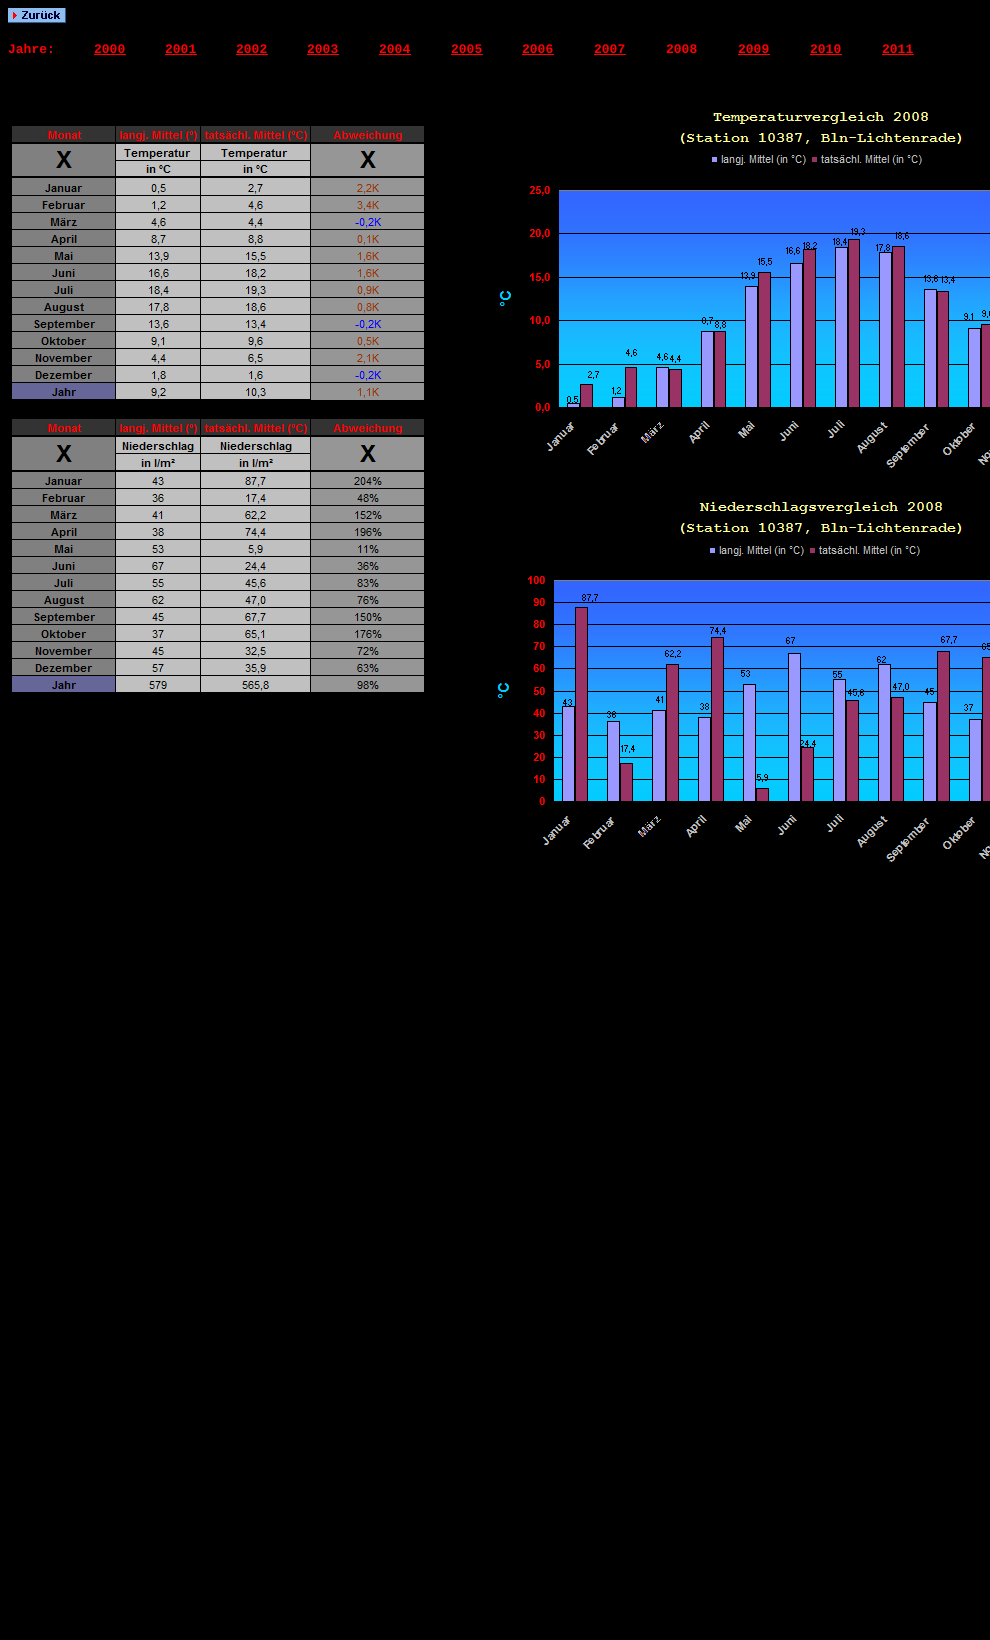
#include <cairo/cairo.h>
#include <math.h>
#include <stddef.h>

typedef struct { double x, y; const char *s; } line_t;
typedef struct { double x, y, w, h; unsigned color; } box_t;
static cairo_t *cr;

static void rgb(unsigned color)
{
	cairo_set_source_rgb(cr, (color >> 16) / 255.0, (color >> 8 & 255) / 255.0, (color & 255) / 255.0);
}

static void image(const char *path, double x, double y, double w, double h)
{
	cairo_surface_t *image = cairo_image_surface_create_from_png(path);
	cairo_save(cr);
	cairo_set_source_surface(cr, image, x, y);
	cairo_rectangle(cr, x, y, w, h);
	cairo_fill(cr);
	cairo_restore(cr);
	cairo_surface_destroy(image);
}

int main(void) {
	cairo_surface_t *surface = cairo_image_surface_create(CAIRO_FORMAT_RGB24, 990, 1640);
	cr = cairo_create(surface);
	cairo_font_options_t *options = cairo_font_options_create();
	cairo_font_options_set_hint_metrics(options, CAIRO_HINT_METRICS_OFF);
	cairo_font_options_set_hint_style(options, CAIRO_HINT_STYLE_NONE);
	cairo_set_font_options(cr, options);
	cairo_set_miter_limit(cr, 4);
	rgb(0x000000);
	cairo_paint(cr);
	image("img/1.png", 8, 8, 58, 15);
	{
		static const box_t items[] = {
			{94, 54, 32, 1, 0xff0000},
			{165, 54, 32, 1, 0xff0000},
			{236, 54, 32, 1, 0xff0000},
			{307, 54, 32, 1, 0xff0000},
			{379, 54, 32, 1, 0xff0000},
			{451, 54, 32, 1, 0xff0000},
			{522, 54, 32, 1, 0xff0000},
			{594, 54, 32, 1, 0xff0000},
			{738, 54, 32, 1, 0xff0000},
			{810, 54, 32, 1, 0xff0000},
			{882, 54, 32, 1, 0xff0000},
		};
		for (size_t i = 0; i < sizeof items / sizeof *items; i++) {
			rgb(items[i].color);
			cairo_rectangle(cr, items[i].x, items[i].y, items[i].w, items[i].h);
			cairo_fill(cr);
		}
	}
	image("img/2.png", 12, 112, 978, 750);
	cairo_select_font_face(cr, "Liberation Mono", CAIRO_FONT_SLANT_NORMAL, CAIRO_FONT_WEIGHT_BOLD);
	cairo_set_font_size(cr, 13);
	{
		static const line_t items[] = {
			{8, 53, "Jahre:"},
			{94, 53, "2000"},
			{165, 53, "2001"},
			{236, 53, "2002"},
			{307, 53, "2003"},
			{379, 53, "2004"},
			{451, 53, "2005"},
			{522, 53, "2006"},
			{594, 53, "2007"},
			{666, 53, "2008"},
			{738, 53, "2009"},
			{810, 53, "2010"},
			{882, 53, "2011"},
		};
		for (size_t i = 0; i < sizeof items / sizeof *items; i++) {
			cairo_move_to(cr, items[i].x, items[i].y);
			cairo_show_text(cr, items[i].s);
		}
	}
	cairo_surface_write_to_png(surface, "page.png");
	cairo_font_options_destroy(options);
	cairo_destroy(cr);
	cairo_surface_destroy(surface);
	return 0;
}
